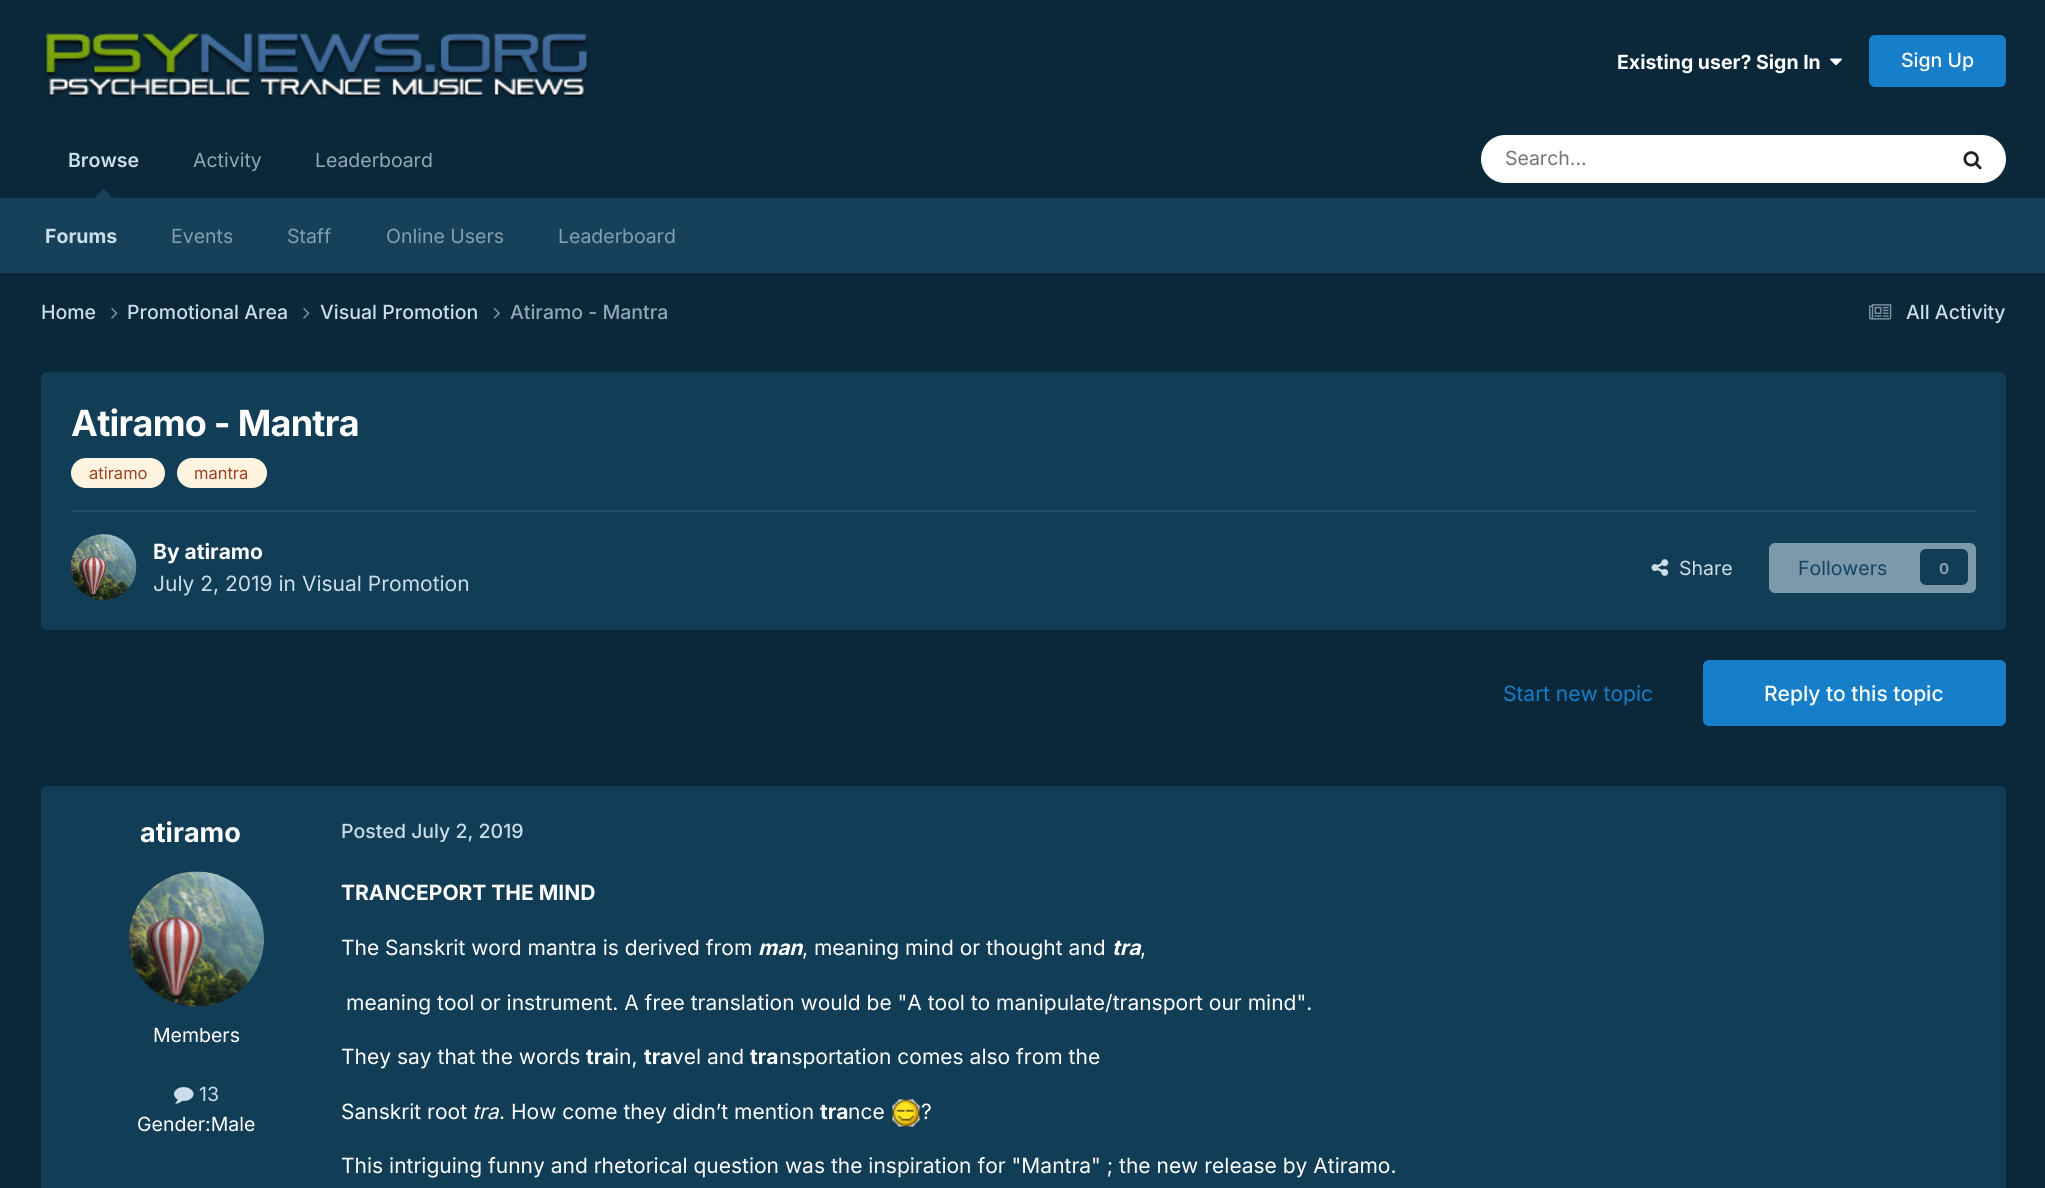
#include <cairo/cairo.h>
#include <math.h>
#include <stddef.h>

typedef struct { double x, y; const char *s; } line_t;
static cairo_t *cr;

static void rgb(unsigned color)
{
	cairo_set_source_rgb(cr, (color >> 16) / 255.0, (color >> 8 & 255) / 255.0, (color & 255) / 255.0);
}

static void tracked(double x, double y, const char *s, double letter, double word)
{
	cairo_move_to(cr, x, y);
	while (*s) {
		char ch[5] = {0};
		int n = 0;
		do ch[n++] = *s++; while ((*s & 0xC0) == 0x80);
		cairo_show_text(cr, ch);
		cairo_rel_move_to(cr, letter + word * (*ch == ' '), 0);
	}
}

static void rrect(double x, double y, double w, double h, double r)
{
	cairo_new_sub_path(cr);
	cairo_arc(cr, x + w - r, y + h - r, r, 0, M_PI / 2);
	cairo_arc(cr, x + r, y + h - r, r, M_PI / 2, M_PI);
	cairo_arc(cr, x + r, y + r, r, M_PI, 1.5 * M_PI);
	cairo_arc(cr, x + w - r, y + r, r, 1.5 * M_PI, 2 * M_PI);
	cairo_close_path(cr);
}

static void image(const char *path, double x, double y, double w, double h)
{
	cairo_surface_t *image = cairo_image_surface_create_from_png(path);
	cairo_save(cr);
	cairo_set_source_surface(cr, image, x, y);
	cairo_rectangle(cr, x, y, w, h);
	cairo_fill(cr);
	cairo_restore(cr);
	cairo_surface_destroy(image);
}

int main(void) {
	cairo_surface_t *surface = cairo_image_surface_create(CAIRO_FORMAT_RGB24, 2045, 1188);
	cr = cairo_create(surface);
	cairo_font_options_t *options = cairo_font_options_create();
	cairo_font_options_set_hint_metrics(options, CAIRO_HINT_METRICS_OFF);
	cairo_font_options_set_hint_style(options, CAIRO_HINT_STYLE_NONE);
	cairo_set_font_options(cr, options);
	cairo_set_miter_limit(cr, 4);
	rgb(0x0b283a);
	cairo_paint(cr);
	image("img/1.png", 44, 33, 545, 65);
	image("img/2.png", 1830, 58, 12, 8);
	rgb(0x177ec9);
	rrect(1869, 35, 137, 52, 6);
	cairo_fill(cr);
	rgb(0x17415a);
	cairo_new_path(cr);
	cairo_move_to(cr, 112.5, 198);
	cairo_line_to(cr, 94.5, 198);
	cairo_line_to(cr, 103.5, 189);
	cairo_close_path(cr);
	cairo_fill(cr);
	rgb(0xffffff);
	rrect(1481, 135, 525, 48, 24);
	cairo_fill(cr);
	image("img/3.png", 1963, 151, 19, 19);
	rgb(0x17415a);
	cairo_rectangle(cr, 0, 198, 2045, 75);
	cairo_fill(cr);
	image("img/4.png", 111, 307, 7, 12);
	image("img/4.png", 303, 307, 7, 12);
	image("img/5.png", 493, 307, 7, 12);
	image("img/6.png", 1869, 304, 23, 16);
	rgb(0x123d57);
	rrect(41, 372, 1965, 258, 6);
	cairo_fill(cr);
	rgb(0xfff4df);
	rrect(71, 458, 94, 30, 15);
	cairo_fill(cr);
	rrect(177, 458, 90, 30, 15);
	cairo_fill(cr);
	rgb(0x254d64);
	cairo_rectangle(cr, 71, 510, 1905, 2);
	cairo_fill(cr);
	image("img/7.png", 70, 534, 67, 66);
	image("img/8.png", 1651, 559, 18, 17);
	rgb(0x7d98a9);
	rrect(1769, 543, 207, 50, 6);
	cairo_fill(cr);
	rgb(0x123d57);
	rrect(1920, 549, 48, 36, 6);
	cairo_fill(cr);
	rgb(0x177ec9);
	rrect(1703, 660, 303, 66, 6);
	cairo_fill(cr);
	rgb(0x123d57);
	rrect(41, 786, 1965, 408, 6);
	cairo_fill(cr);
	image("img/9.png", 129, 871, 135, 136);
	image("img/10.png", 174, 1087, 20, 17);
	image("img/11.png", 892, 1099, 28, 28);
	cairo_select_font_face(cr, "Inter", CAIRO_FONT_SLANT_NORMAL, CAIRO_FONT_WEIGHT_BOLD);
	cairo_set_font_size(cr, 19.5);
	rgb(0xffffff);
	cairo_move_to(cr, 1617, 69);
	cairo_show_text(cr, "Existing user? Sign In");
	cairo_select_font_face(cr, "Inter Medium", CAIRO_FONT_SLANT_NORMAL, CAIRO_FONT_WEIGHT_NORMAL);
	cairo_move_to(cr, 1901, 67);
	cairo_show_text(cr, "Sign Up");
	cairo_select_font_face(cr, "Inter SemiBold", CAIRO_FONT_SLANT_NORMAL, CAIRO_FONT_WEIGHT_NORMAL);
	rgb(0xcadee9);
	cairo_move_to(cr, 68, 167);
	cairo_show_text(cr, "Browse");
	cairo_select_font_face(cr, "Inter", CAIRO_FONT_SLANT_NORMAL, CAIRO_FONT_WEIGHT_BOLD);
	cairo_move_to(cr, 45, 243);
	cairo_show_text(cr, "Forums");
	cairo_select_font_face(cr, "Inter", CAIRO_FONT_SLANT_NORMAL, CAIRO_FONT_WEIGHT_NORMAL);
	rgb(0x829fb0);
	{
		static const line_t items[] = {
			{171, 243, "Events"},
			{287, 243, "Staff"},
			{386, 243, "Online Users"},
			{558, 243, "Leaderboard"},
		};
		for (size_t i = 0; i < sizeof items / sizeof *items; i++) {
			cairo_move_to(cr, items[i].x, items[i].y);
			cairo_show_text(cr, items[i].s);
		}
	}
	rgb(0x91a7b5);
	cairo_move_to(cr, 193, 167);
	cairo_show_text(cr, "Activity");
	cairo_move_to(cr, 315, 167);
	cairo_show_text(cr, "Leaderboard");
	rgb(0x757575);
	cairo_move_to(cr, 1505, 165);
	cairo_show_text(cr, "Search...");
	cairo_select_font_face(cr, "Inter Medium", CAIRO_FONT_SLANT_NORMAL, CAIRO_FONT_WEIGHT_NORMAL);
	rgb(0xcadee9);
	{
		static const line_t items[] = {
			{41, 319, "Home"},
			{127, 319, "Promotional Area"},
			{320, 319, "Visual Promotion"},
		};
		for (size_t i = 0; i < sizeof items / sizeof *items; i++) {
			cairo_move_to(cr, items[i].x, items[i].y);
			cairo_show_text(cr, items[i].s);
		}
	}
	rgb(0x91a7b5);
	cairo_move_to(cr, 510, 319);
	cairo_show_text(cr, "Atiramo - Mantra");
	rgb(0xcadee9);
	cairo_move_to(cr, 1906, 319);
	cairo_show_text(cr, "All Activity");
	cairo_select_font_face(cr, "Inter", CAIRO_FONT_SLANT_NORMAL, CAIRO_FONT_WEIGHT_BOLD);
	cairo_set_font_size(cr, 36);
	rgb(0xffffff);
	tracked(71, 436, "Atiramo - Mantra", -0.75, 0);
	cairo_select_font_face(cr, "Inter", CAIRO_FONT_SLANT_NORMAL, CAIRO_FONT_WEIGHT_NORMAL);
	cairo_set_font_size(cr, 16.5);
	rgb(0x9c4221);
	cairo_move_to(cr, 89, 479);
	cairo_show_text(cr, "atiramo");
	cairo_move_to(cr, 194, 479);
	cairo_show_text(cr, "mantra");
	cairo_select_font_face(cr, "Inter", CAIRO_FONT_SLANT_NORMAL, CAIRO_FONT_WEIGHT_BOLD);
	cairo_set_font_size(cr, 21);
	rgb(0xffffff);
	cairo_move_to(cr, 153, 559);
	cairo_show_text(cr, "By atiramo");
	cairo_select_font_face(cr, "Inter", CAIRO_FONT_SLANT_NORMAL, CAIRO_FONT_WEIGHT_NORMAL);
	rgb(0xcadee9);
	cairo_move_to(cr, 153, 591);
	cairo_show_text(cr, "July 2, 2019 in Visual Promotion");
	cairo_set_font_size(cr, 19.5);
	cairo_move_to(cr, 1679, 575);
	cairo_show_text(cr, "Share");
	rgb(0x104568);
	cairo_move_to(cr, 1798, 575);
	cairo_show_text(cr, "Followers");
	cairo_select_font_face(cr, "Inter", CAIRO_FONT_SLANT_NORMAL, CAIRO_FONT_WEIGHT_BOLD);
	cairo_set_font_size(cr, 15);
	rgb(0x899eab);
	cairo_move_to(cr, 1939, 574);
	cairo_show_text(cr, "0");
	cairo_select_font_face(cr, "Inter", CAIRO_FONT_SLANT_NORMAL, CAIRO_FONT_WEIGHT_NORMAL);
	cairo_set_font_size(cr, 21);
	rgb(0x177ec9);
	cairo_move_to(cr, 1503, 701);
	cairo_show_text(cr, "Start new topic");
	cairo_select_font_face(cr, "Inter Medium", CAIRO_FONT_SLANT_NORMAL, CAIRO_FONT_WEIGHT_NORMAL);
	rgb(0xffffff);
	cairo_move_to(cr, 1764, 701);
	cairo_show_text(cr, "Reply to this topic");
	cairo_select_font_face(cr, "Inter", CAIRO_FONT_SLANT_NORMAL, CAIRO_FONT_WEIGHT_BOLD);
	cairo_set_font_size(cr, 27);
	cairo_move_to(cr, 140, 842);
	cairo_show_text(cr, "atiramo");
	cairo_select_font_face(cr, "Inter", CAIRO_FONT_SLANT_NORMAL, CAIRO_FONT_WEIGHT_NORMAL);
	cairo_set_font_size(cr, 19.5);
	cairo_move_to(cr, 153, 1042);
	cairo_show_text(cr, "Members");
	rgb(0xcadee9);
	cairo_move_to(cr, 199, 1101);
	cairo_show_text(cr, "13");
	rgb(0xffffff);
	cairo_move_to(cr, 137, 1131);
	cairo_show_text(cr, "Gender:Male");
	cairo_select_font_face(cr, "Inter Medium", CAIRO_FONT_SLANT_NORMAL, CAIRO_FONT_WEIGHT_NORMAL);
	rgb(0xcadee9);
	cairo_move_to(cr, 341, 838);
	cairo_show_text(cr, "Posted July 2, 2019");
	cairo_select_font_face(cr, "Inter", CAIRO_FONT_SLANT_NORMAL, CAIRO_FONT_WEIGHT_BOLD);
	cairo_set_font_size(cr, 21);
	rgb(0xffffff);
	cairo_move_to(cr, 341, 900);
	cairo_show_text(cr, "TRANCEPORT THE MIND");
	cairo_select_font_face(cr, "Inter", CAIRO_FONT_SLANT_NORMAL, CAIRO_FONT_WEIGHT_NORMAL);
	cairo_move_to(cr, 341, 955);
	cairo_show_text(cr, "The Sanskrit word mantra is derived from");
	cairo_select_font_face(cr, "Inter", CAIRO_FONT_SLANT_ITALIC, CAIRO_FONT_WEIGHT_BOLD);
	cairo_move_to(cr, 758, 955);
	cairo_show_text(cr, "man");
	cairo_select_font_face(cr, "Inter", CAIRO_FONT_SLANT_NORMAL, CAIRO_FONT_WEIGHT_NORMAL);
	cairo_move_to(cr, 802, 955);
	cairo_show_text(cr, ", meaning mind or thought and");
	cairo_select_font_face(cr, "Inter", CAIRO_FONT_SLANT_ITALIC, CAIRO_FONT_WEIGHT_BOLD);
	cairo_move_to(cr, 1112, 955);
	cairo_show_text(cr, "tra");
	cairo_select_font_face(cr, "Inter", CAIRO_FONT_SLANT_NORMAL, CAIRO_FONT_WEIGHT_NORMAL);
	{
		static const line_t items[] = {
			{1140, 955, ","},
			{346, 1010, "meaning tool or instrument. A free translation would be \"A tool to manipulate/transport our mind\"."},
			{341, 1064, "They say that the words"},
		};
		for (size_t i = 0; i < sizeof items / sizeof *items; i++) {
			cairo_move_to(cr, items[i].x, items[i].y);
			cairo_show_text(cr, items[i].s);
		}
	}
	cairo_select_font_face(cr, "Inter", CAIRO_FONT_SLANT_NORMAL, CAIRO_FONT_WEIGHT_BOLD);
	cairo_move_to(cr, 586, 1064);
	cairo_show_text(cr, "tra");
	cairo_select_font_face(cr, "Inter", CAIRO_FONT_SLANT_NORMAL, CAIRO_FONT_WEIGHT_NORMAL);
	cairo_move_to(cr, 614, 1064);
	cairo_show_text(cr, "in,");
	cairo_select_font_face(cr, "Inter", CAIRO_FONT_SLANT_NORMAL, CAIRO_FONT_WEIGHT_BOLD);
	cairo_move_to(cr, 644, 1064);
	cairo_show_text(cr, "tra");
	cairo_select_font_face(cr, "Inter", CAIRO_FONT_SLANT_NORMAL, CAIRO_FONT_WEIGHT_NORMAL);
	cairo_move_to(cr, 672, 1064);
	cairo_show_text(cr, "vel and");
	cairo_select_font_face(cr, "Inter", CAIRO_FONT_SLANT_NORMAL, CAIRO_FONT_WEIGHT_BOLD);
	cairo_move_to(cr, 750, 1064);
	cairo_show_text(cr, "tra");
	cairo_select_font_face(cr, "Inter", CAIRO_FONT_SLANT_NORMAL, CAIRO_FONT_WEIGHT_NORMAL);
	cairo_move_to(cr, 779, 1064);
	cairo_show_text(cr, "nsportation comes also from the");
	cairo_move_to(cr, 341, 1119);
	cairo_show_text(cr, "Sanskrit root");
	cairo_select_font_face(cr, "Inter", CAIRO_FONT_SLANT_ITALIC, CAIRO_FONT_WEIGHT_NORMAL);
	cairo_move_to(cr, 472, 1119);
	cairo_show_text(cr, "tra");
	cairo_select_font_face(cr, "Inter", CAIRO_FONT_SLANT_NORMAL, CAIRO_FONT_WEIGHT_NORMAL);
	cairo_move_to(cr, 499, 1119);
	cairo_show_text(cr, ". How come they didn’t mention");
	cairo_select_font_face(cr, "Inter", CAIRO_FONT_SLANT_NORMAL, CAIRO_FONT_WEIGHT_BOLD);
	cairo_move_to(cr, 820, 1119);
	cairo_show_text(cr, "tra");
	cairo_select_font_face(cr, "Inter", CAIRO_FONT_SLANT_NORMAL, CAIRO_FONT_WEIGHT_NORMAL);
	{
		static const line_t items[] = {
			{848, 1119, "nce"},
			{921, 1119, "?"},
			{341, 1173, "This intriguing funny and rhetorical question was the inspiration for \"Mantra\" ; the new release by Atiramo."},
		};
		for (size_t i = 0; i < sizeof items / sizeof *items; i++) {
			cairo_move_to(cr, items[i].x, items[i].y);
			cairo_show_text(cr, items[i].s);
		}
	}
	cairo_surface_write_to_png(surface, "page.png");
	cairo_font_options_destroy(options);
	cairo_destroy(cr);
	cairo_surface_destroy(surface);
	return 0;
}
